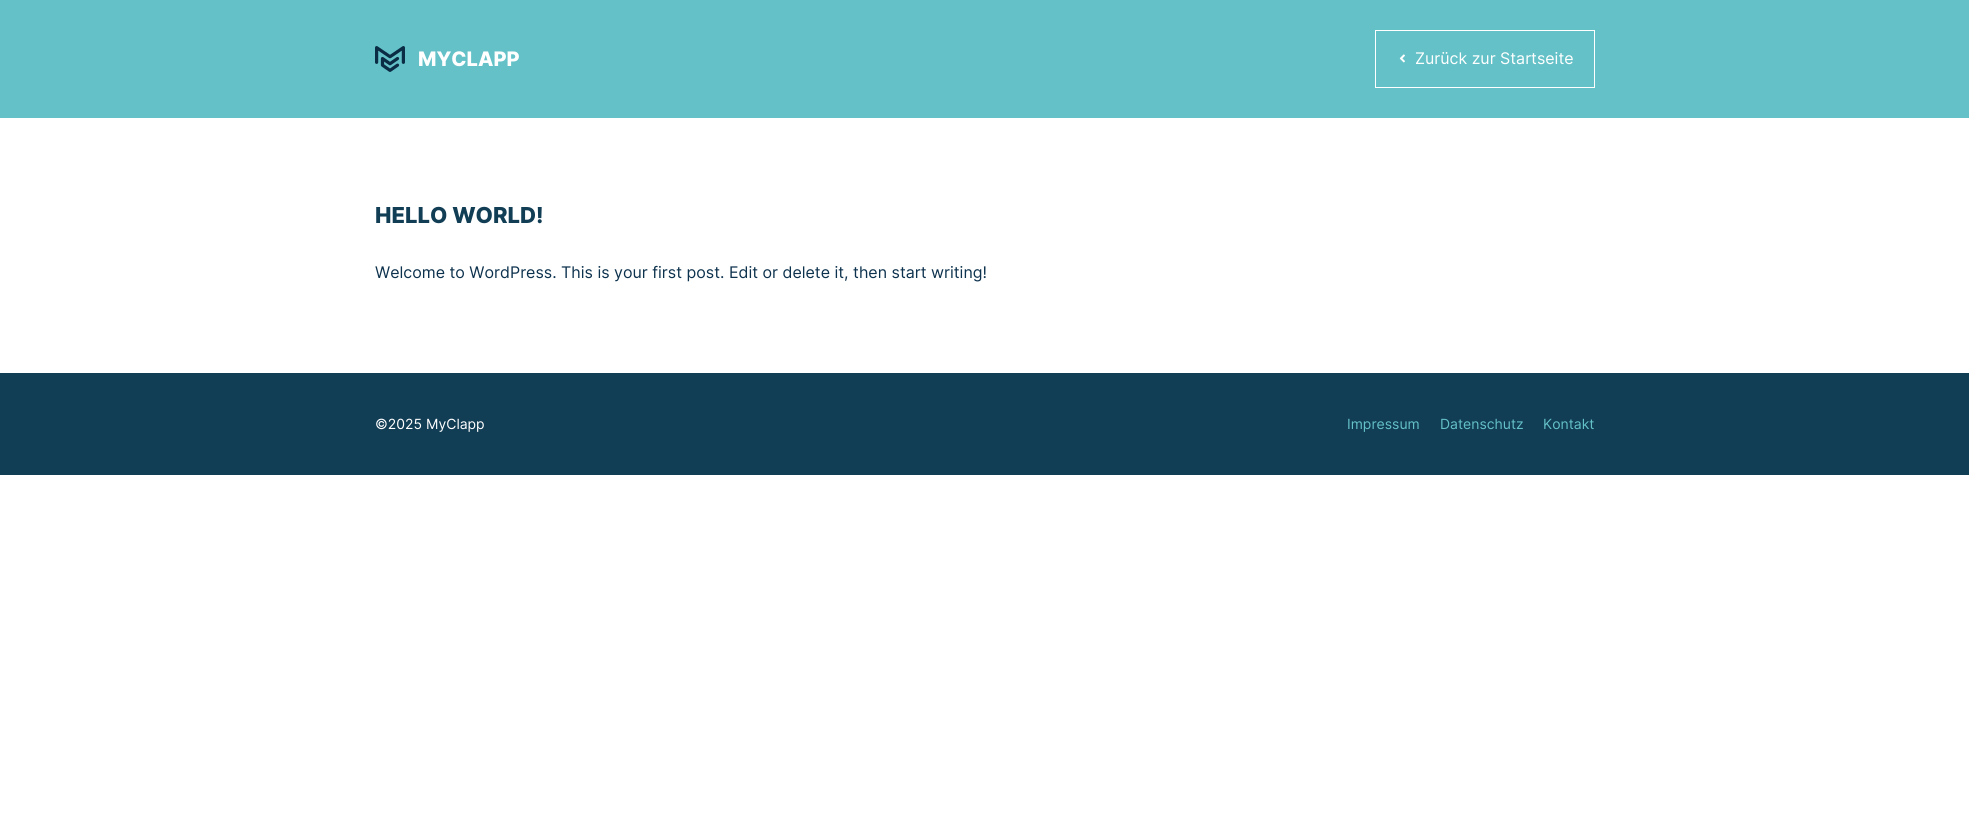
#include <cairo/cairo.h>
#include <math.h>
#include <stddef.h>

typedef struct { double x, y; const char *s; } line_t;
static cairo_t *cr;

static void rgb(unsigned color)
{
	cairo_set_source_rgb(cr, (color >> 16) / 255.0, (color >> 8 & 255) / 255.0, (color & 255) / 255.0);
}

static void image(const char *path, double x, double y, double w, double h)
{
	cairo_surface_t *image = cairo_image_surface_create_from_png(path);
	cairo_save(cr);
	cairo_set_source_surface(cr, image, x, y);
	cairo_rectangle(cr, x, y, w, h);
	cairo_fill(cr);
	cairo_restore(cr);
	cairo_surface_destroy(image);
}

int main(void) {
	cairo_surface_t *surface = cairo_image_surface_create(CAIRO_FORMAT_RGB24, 1969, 838);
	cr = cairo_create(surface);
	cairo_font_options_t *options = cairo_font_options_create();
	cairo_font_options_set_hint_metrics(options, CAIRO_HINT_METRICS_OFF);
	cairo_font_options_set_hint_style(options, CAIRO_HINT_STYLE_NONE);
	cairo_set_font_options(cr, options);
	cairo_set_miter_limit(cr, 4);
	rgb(0xffffff);
	cairo_paint(cr);
	rgb(0x64c1c7);
	cairo_rectangle(cr, 0, 0, 1969, 118);
	cairo_fill(cr);
	image("img/1.png", 375, 46, 30, 26);
	cairo_rectangle(cr, 1375.5, 30.5, 219, 57);
	rgb(0xffffff);
	cairo_set_line_width(cr, 1);
	cairo_stroke(cr);
	image("img/2.png", 1399, 54, 6, 9);
	rgb(0x113d55);
	cairo_rectangle(cr, 0, 373, 1969, 102);
	cairo_fill(cr);
	cairo_select_font_face(cr, "Inter ExtraBold", CAIRO_FONT_SLANT_NORMAL, CAIRO_FONT_WEIGHT_NORMAL);
	cairo_set_font_size(cr, 20);
	rgb(0xffffff);
	cairo_move_to(cr, 418, 66);
	cairo_show_text(cr, "MYCLAPP");
	cairo_select_font_face(cr, "Inter", CAIRO_FONT_SLANT_NORMAL, CAIRO_FONT_WEIGHT_NORMAL);
	cairo_set_font_size(cr, 16);
	cairo_move_to(cr, 1415, 64);
	cairo_show_text(cr, "Zurück zur Startseite");
	cairo_select_font_face(cr, "Inter ExtraBold", CAIRO_FONT_SLANT_NORMAL, CAIRO_FONT_WEIGHT_NORMAL);
	cairo_set_font_size(cr, 22);
	rgb(0x113d55);
	cairo_move_to(cr, 375, 223);
	cairo_show_text(cr, "HELLO WORLD!");
	cairo_select_font_face(cr, "Inter", CAIRO_FONT_SLANT_NORMAL, CAIRO_FONT_WEIGHT_NORMAL);
	cairo_set_font_size(cr, 16);
	rgb(0x0d324d);
	cairo_move_to(cr, 375, 278);
	cairo_show_text(cr, "Welcome to WordPress. This is your first post. Edit or delete it, then start writing!");
	cairo_set_font_size(cr, 14);
	rgb(0xffffff);
	cairo_move_to(cr, 375, 429);
	cairo_show_text(cr, "©2025 MyClapp");
	rgb(0x64c1c7);
	{
		static const line_t items[] = {
			{1347, 429, "Impressum"},
			{1440, 429, "Datenschutz"},
			{1543, 429, "Kontakt"},
		};
		for (size_t i = 0; i < sizeof items / sizeof *items; i++) {
			cairo_move_to(cr, items[i].x, items[i].y);
			cairo_show_text(cr, items[i].s);
		}
	}
	cairo_surface_write_to_png(surface, "page.png");
	cairo_font_options_destroy(options);
	cairo_destroy(cr);
	cairo_surface_destroy(surface);
	return 0;
}
